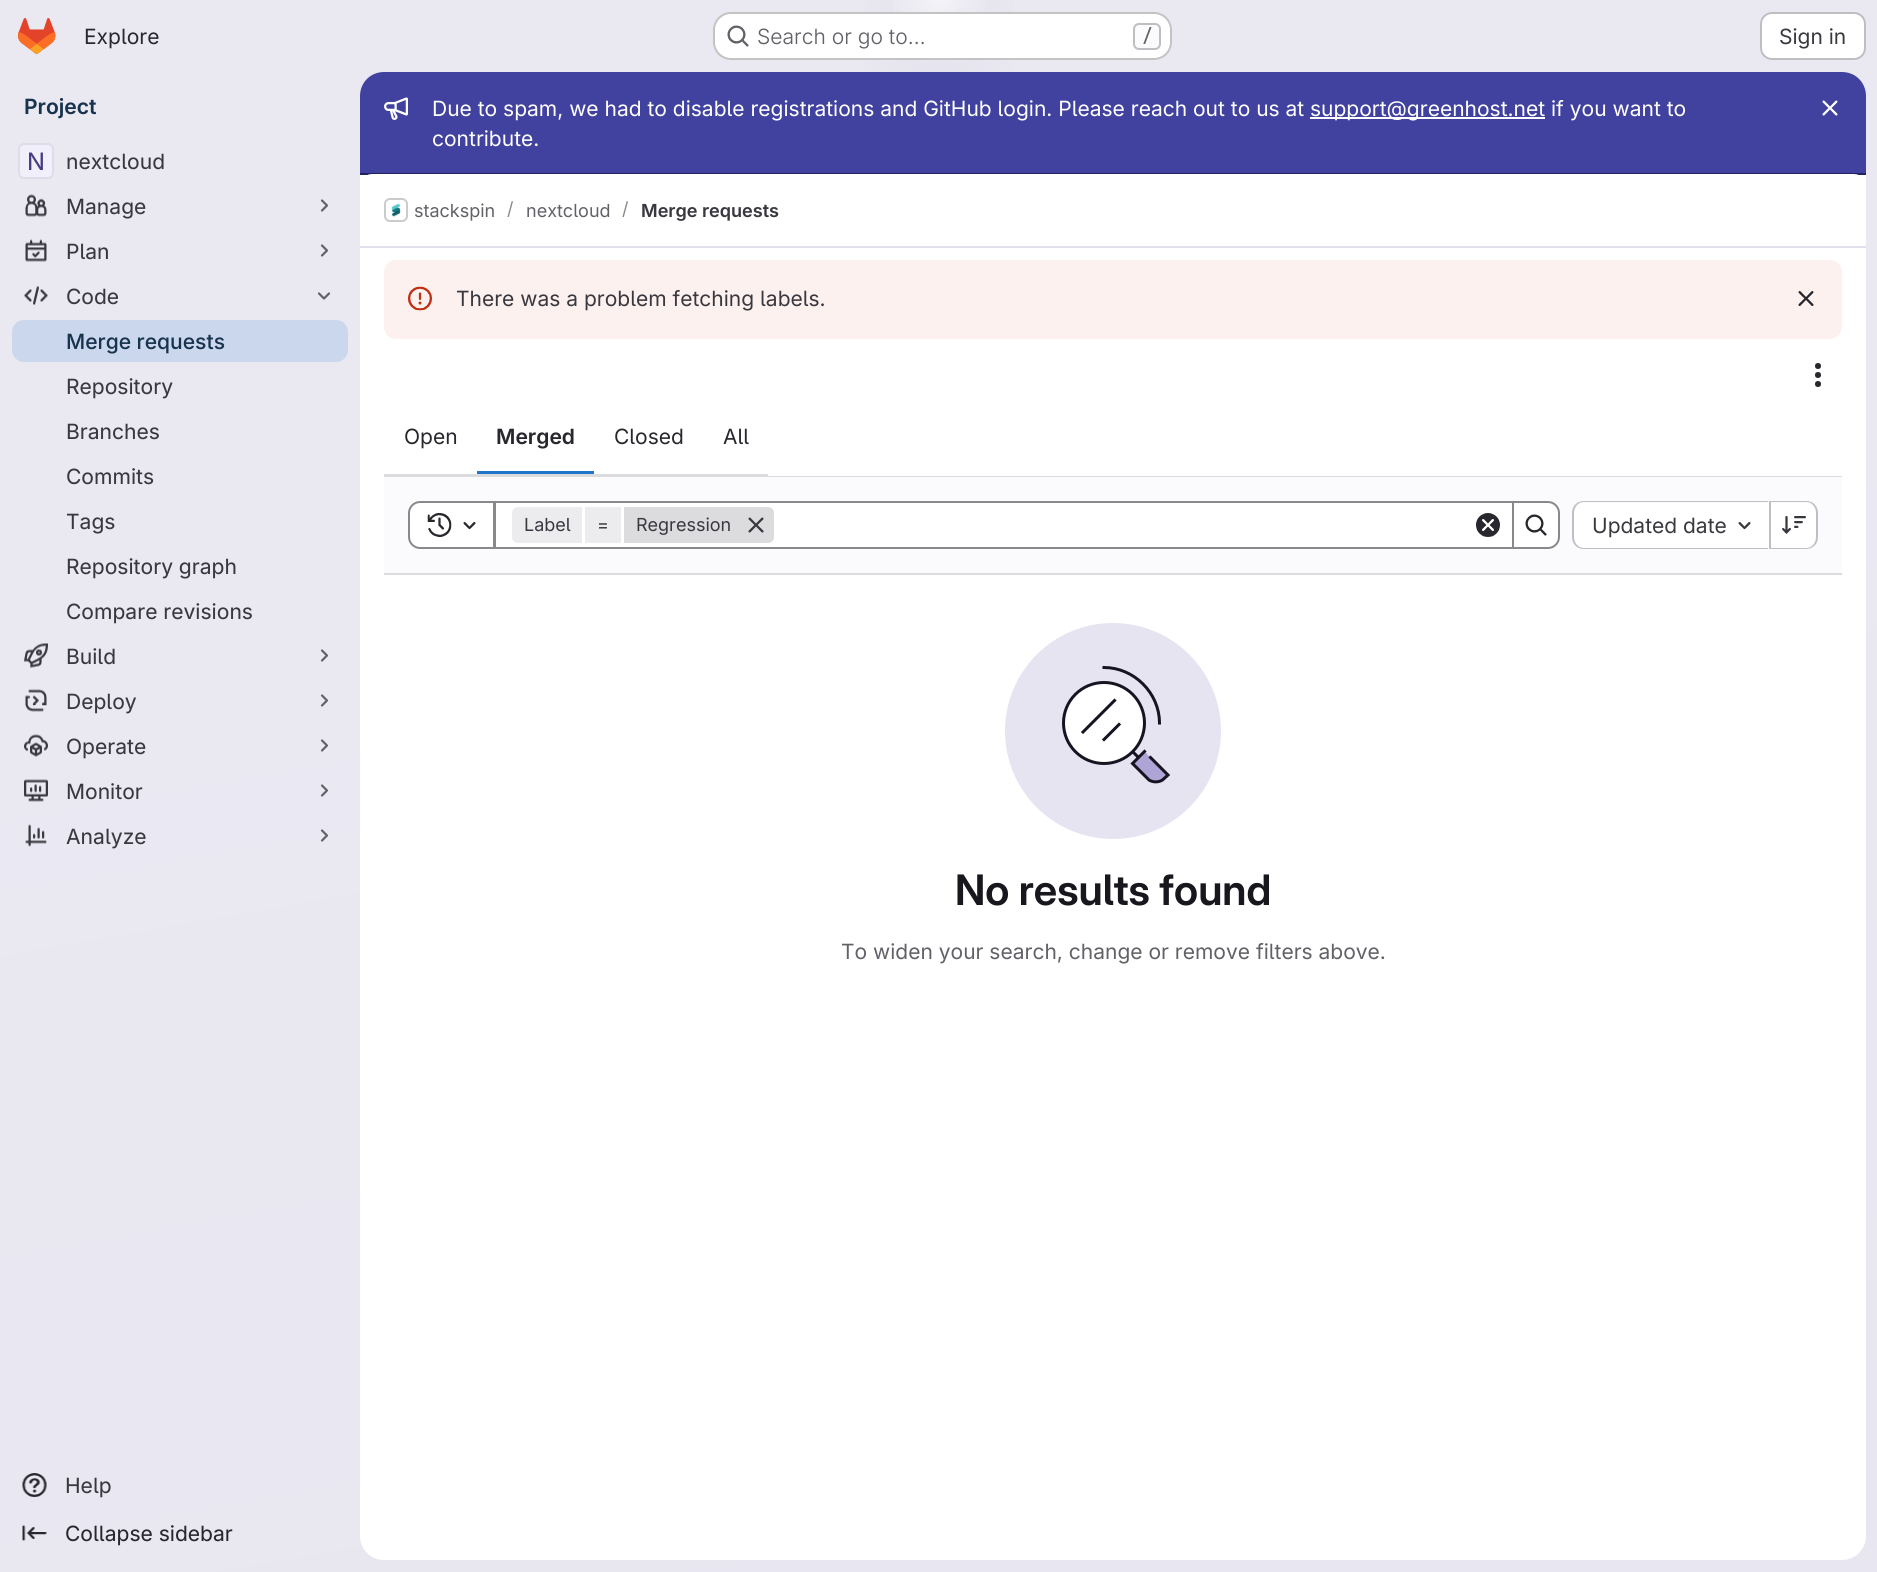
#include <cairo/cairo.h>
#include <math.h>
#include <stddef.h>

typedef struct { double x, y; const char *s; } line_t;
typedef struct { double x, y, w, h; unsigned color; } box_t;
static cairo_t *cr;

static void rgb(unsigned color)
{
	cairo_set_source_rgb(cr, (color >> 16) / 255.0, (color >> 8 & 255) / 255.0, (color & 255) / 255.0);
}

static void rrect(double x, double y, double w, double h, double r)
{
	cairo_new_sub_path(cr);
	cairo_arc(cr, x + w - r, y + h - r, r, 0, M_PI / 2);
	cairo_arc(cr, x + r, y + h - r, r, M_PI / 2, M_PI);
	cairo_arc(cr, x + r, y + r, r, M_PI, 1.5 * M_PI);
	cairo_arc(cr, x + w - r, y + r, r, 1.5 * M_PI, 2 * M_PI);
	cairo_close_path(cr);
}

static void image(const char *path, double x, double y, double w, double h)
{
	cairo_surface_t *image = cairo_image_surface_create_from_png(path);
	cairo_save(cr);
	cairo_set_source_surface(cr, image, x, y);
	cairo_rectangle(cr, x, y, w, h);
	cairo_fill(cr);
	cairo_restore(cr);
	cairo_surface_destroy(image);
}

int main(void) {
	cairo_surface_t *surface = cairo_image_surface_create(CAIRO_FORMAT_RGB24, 1877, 1572);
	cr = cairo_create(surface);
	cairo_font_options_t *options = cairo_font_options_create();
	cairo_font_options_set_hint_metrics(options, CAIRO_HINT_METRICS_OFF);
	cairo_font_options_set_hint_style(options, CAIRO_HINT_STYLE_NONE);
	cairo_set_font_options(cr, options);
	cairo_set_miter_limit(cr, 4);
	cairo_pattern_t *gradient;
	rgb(0xffffff);
	cairo_paint(cr);
	gradient = cairo_pattern_create_linear(1102, 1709, 776, -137);
	cairo_pattern_add_color_stop_rgba(gradient, 0, 0.91, 0.902, 0.941, 1);
	cairo_pattern_add_color_stop_rgba(gradient, 0.7, 0.918, 0.914, 0.949, 1);
	cairo_set_source(cr, gradient);
	cairo_pattern_destroy(gradient);
	cairo_rectangle(cr, 0, 0, 1877, 1572);
	cairo_fill(cr);
	gradient = cairo_pattern_create_radial(0, 0, 0, 0, 0, 1);
	cairo_pattern_set_matrix(gradient, &(cairo_matrix_t){1.0 / 939, 0, 0, 1.0 / 1572, -1.0 * 939 / 939, -1.0 * 0 / 1572});
	cairo_pattern_add_color_stop_rgba(gradient, 0, 0.894, 0.886, 0.929, 1);
	cairo_pattern_add_color_stop_rgba(gradient, 0.11, 0.894, 0.886, 0.929, 0);
	cairo_set_source(cr, gradient);
	cairo_pattern_destroy(gradient);
	cairo_rectangle(cr, 865, 0, 148, 72);
	cairo_fill(cr);
	gradient = cairo_pattern_create_radial(0, 0, 0, 0, 0, 1);
	cairo_pattern_set_matrix(gradient, &(cairo_matrix_t){1.0 / 939, 0, 0, 1.0 / 1572, -1.0 * 939 / 939, -1.0 * 0 / 1572});
	cairo_pattern_add_color_stop_rgba(gradient, 0, 0.894, 0.886, 0.925, 1);
	cairo_pattern_add_color_stop_rgba(gradient, 0.08, 0.894, 0.886, 0.925, 0);
	cairo_set_source(cr, gradient);
	cairo_pattern_destroy(gradient);
	cairo_rectangle(cr, 908, 7, 62, 41);
	cairo_fill(cr);
	gradient = cairo_pattern_create_radial(939, 0, 0, 939, 0, 1831);
	cairo_pattern_add_color_stop_rgba(gradient, 0, 1, 1, 1, 0.6);
	cairo_pattern_add_color_stop_rgba(gradient, 0.03, 1, 1, 1, 0);
	cairo_set_source(cr, gradient);
	cairo_pattern_destroy(gradient);
	cairo_rectangle(cr, 893, 0, 92, 12);
	cairo_fill(cr);
	image("img/1.png", 18, 18, 38, 36);
	rgb(0xffffff);
	rrect(713, 12, 459, 48, 18);
	cairo_fill(cr);
	rrect(714, 13, 457, 46, 17);
	cairo_set_source_rgba(cr, 0.02, 0.02, 0.024, 0.24);
	cairo_stroke(cr);
	image("img/2.png", 727, 25, 22, 22);
	rgb(0xfbfafd);
	rrect(1134, 24, 26, 25, 5);
	cairo_fill_preserve(cr);
	rgb(0xbfbfc3);
	cairo_stroke(cr);
	rgb(0xffffff);
	rrect(1761, 13, 104, 46, 11);
	cairo_fill_preserve(cr);
	rgb(0xbfbfc3);
	cairo_stroke(cr);
	rgb(0xffffff);
	rrect(18, 143, 36, 36, 6);
	cairo_fill(cr);
	cairo_set_source_rgba(cr, 0.796, 0.733, 0.949, 0.24);
	rrect(18, 143, 36, 36, 6);
	cairo_fill(cr);
	rrect(19, 144, 34, 34, 5);
	rgb(0xdfdce8);
	cairo_stroke(cr);
	image("img/3.png", 25, 194, 22, 23);
	cairo_new_path(cr);
	cairo_move_to(cr, 322, 200.5);
	cairo_line_to(cr, 327, 205.5);
	cairo_line_to(cr, 322, 210.5);
	rgb(0x626168);
	cairo_set_line_width(cr, 2.2);
	cairo_set_line_cap(cr, CAIRO_LINE_CAP_ROUND);
	cairo_set_line_join(cr, CAIRO_LINE_JOIN_ROUND);
	cairo_stroke(cr);
	image("img/4.png", 25, 239, 22, 23);
	cairo_new_path(cr);
	cairo_move_to(cr, 322, 245.5);
	cairo_line_to(cr, 327, 250.5);
	cairo_line_to(cr, 322, 255.5);
	cairo_stroke(cr);
	image("img/5.png", 24, 286, 24, 19);
	cairo_new_path(cr);
	cairo_move_to(cr, 329, 293.5);
	cairo_line_to(cr, 324, 298.5);
	cairo_line_to(cr, 319, 293.5);
	cairo_stroke(cr);
	rgb(0xcad7ec);
	rrect(12, 320, 336, 42, 12);
	cairo_fill(cr);
	image("img/6.png", 24, 643, 24, 25);
	cairo_new_path(cr);
	cairo_move_to(cr, 322, 650.5);
	cairo_line_to(cr, 327, 655.5);
	cairo_line_to(cr, 322, 660.5);
	rgb(0x626168);
	cairo_stroke(cr);
	image("img/7.png", 25, 689, 22, 23);
	cairo_new_path(cr);
	cairo_move_to(cr, 322, 695.5);
	cairo_line_to(cr, 327, 700.5);
	cairo_line_to(cr, 322, 705.5);
	cairo_stroke(cr);
	image("img/8.png", 24, 734, 24, 23);
	cairo_new_path(cr);
	cairo_move_to(cr, 322, 740.5);
	cairo_line_to(cr, 327, 745.5);
	cairo_line_to(cr, 322, 750.5);
	cairo_stroke(cr);
	image("img/9.png", 24, 779, 24, 23);
	cairo_new_path(cr);
	cairo_move_to(cr, 322, 785.5);
	cairo_line_to(cr, 327, 790.5);
	cairo_line_to(cr, 322, 795.5);
	cairo_stroke(cr);
	image("img/10.png", 25, 824, 22, 23);
	cairo_new_path(cr);
	cairo_move_to(cr, 322, 830.5);
	cairo_line_to(cr, 327, 835.5);
	cairo_line_to(cr, 322, 840.5);
	cairo_stroke(cr);
	image("img/11.png", 22, 1473, 25, 24);
	image("img/12.png", 22, 1525, 25, 16);
	rgb(0xffffff);
	rrect(360, 72, 1506, 1488, 24);
	cairo_fill(cr);
	rgb(0x41419f);
	cairo_new_path(cr);
	cairo_move_to(cr, 384, 72);
	cairo_line_to(cr, 1842, 72);
	cairo_curve_to(cr, 1855.5, 72, 1866, 82.5, 1866, 96);
	cairo_line_to(cr, 1866, 174);
	cairo_line_to(cr, 360, 174);
	cairo_line_to(cr, 360, 96);
	cairo_curve_to(cr, 360, 82.5, 370.5, 72, 384, 72);
	cairo_close_path(cr);
	cairo_fill(cr);
	rgb(0x222261);
	cairo_rectangle(cr, 360, 173, 1506, 2);
	cairo_fill(cr);
	image("img/13.png", 384, 97, 24, 23);
	rgb(0xffffff);
	cairo_rectangle(cr, 1310, 117, 235, 2);
	cairo_fill(cr);
	image("img/14.png", 1822, 100, 16, 16);
	cairo_new_path(cr);
	cairo_move_to(cr, 372, 174);
	cairo_line_to(cr, 1854, 174);
	cairo_curve_to(cr, 1860.5, 174, 1866, 179.5, 1866, 186);
	cairo_line_to(cr, 1866, 248);
	cairo_line_to(cr, 360, 248);
	cairo_line_to(cr, 360, 186);
	cairo_curve_to(cr, 360, 179.5, 365.5, 174, 372, 174);
	cairo_close_path(cr);
	cairo_fill(cr);
	rgb(0xe1dfec);
	cairo_rectangle(cr, 360, 246, 1506, 2);
	cairo_fill(cr);
	rrect(385, 199, 22, 22, 5);
	rgb(0xdcdcde);
	cairo_set_line_width(cr, 2);
	cairo_set_line_cap(cr, CAIRO_LINE_CAP_BUTT);
	cairo_set_line_join(cr, CAIRO_LINE_JOIN_MITER);
	cairo_stroke(cr);
	image("img/15.png", 391, 203, 10, 14);
	rrect(385, 199, 22, 22, 5);
	cairo_set_source_rgba(cr, 0.02, 0.02, 0.024, 0.08);
	cairo_stroke(cr);
	rgb(0xfcf1ef);
	rrect(384, 260, 1458, 79, 12);
	cairo_fill(cr);
	image("img/16.png", 408, 286, 24, 25);
	image("img/17.png", 1798, 291, 16, 15);
	rgb(0xdcdcde);
	cairo_rectangle(cr, 384, 476, 1458, 1);
	cairo_fill(cr);
	image("img/18.png", 1815, 363, 6, 24);
	{
		static const box_t items[] = {
			{384, 474, 384, 2, 0xdcdcde},
			{477, 471, 117, 3, 0x1f75cb},
			{384, 477, 1458, 96, 0xfbfafd},
			{384, 573, 1458, 2, 0xdcdcde},
		};
		for (size_t i = 0; i < sizeof items / sizeof *items; i++) {
			rgb(items[i].color);
			cairo_rectangle(cr, items[i].x, items[i].y, items[i].w, items[i].h);
			cairo_fill(cr);
		}
	}
	rgb(0xffffff);
	cairo_rectangle(cr, 495, 502, 1018, 46);
	cairo_fill_preserve(cr);
	rgb(0x89888d);
	cairo_stroke(cr);
	rgb(0xffffff);
	cairo_new_path(cr);
	cairo_move_to(cr, 420, 502);
	cairo_line_to(cr, 494, 502);
	cairo_line_to(cr, 494, 548);
	cairo_line_to(cr, 420, 548);
	cairo_curve_to(cr, 414, 548, 409, 543, 409, 537);
	cairo_line_to(cr, 409, 513);
	cairo_curve_to(cr, 409, 507, 414, 502, 420, 502);
	cairo_close_path(cr);
	cairo_fill_preserve(cr);
	rgb(0x89888d);
	cairo_stroke(cr);
	image("img/19.png", 427, 513, 25, 24);
	image("img/20.png", 463, 522, 13, 8);
	rgb(0xececef);
	cairo_new_path(cr);
	cairo_move_to(cr, 518, 507);
	cairo_line_to(cr, 582, 507);
	cairo_line_to(cr, 582, 543);
	cairo_line_to(cr, 518, 543);
	cairo_curve_to(cr, 514.5, 543, 512, 540.5, 512, 537);
	cairo_line_to(cr, 512, 513);
	cairo_curve_to(cr, 512, 509.5, 514.5, 507, 518, 507);
	cairo_close_path(cr);
	cairo_fill(cr);
	cairo_rectangle(cr, 585, 507, 36, 36);
	cairo_fill(cr);
	rgb(0xdcdcde);
	cairo_new_path(cr);
	cairo_move_to(cr, 624, 507);
	cairo_line_to(cr, 768, 507);
	cairo_curve_to(cr, 771.5, 507, 774, 509.5, 774, 513);
	cairo_line_to(cr, 774, 537);
	cairo_curve_to(cr, 774, 540.5, 771.5, 543, 768, 543);
	cairo_line_to(cr, 624, 543);
	cairo_close_path(cr);
	cairo_fill(cr);
	image("img/21.png", 748, 517, 16, 16);
	image("img/22.png", 1476, 513, 24, 24);
	rgb(0xffffff);
	cairo_new_path(cr);
	cairo_move_to(cr, 1513, 502);
	cairo_line_to(cr, 1548, 502);
	cairo_curve_to(cr, 1554, 502, 1559, 507, 1559, 513);
	cairo_line_to(cr, 1559, 537);
	cairo_curve_to(cr, 1559, 543, 1554, 548, 1548, 548);
	cairo_line_to(cr, 1513, 548);
	cairo_close_path(cr);
	cairo_fill_preserve(cr);
	rgb(0x89888d);
	cairo_stroke(cr);
	image("img/23.png", 1525, 514, 22, 22);
	rgb(0xffffff);
	cairo_new_path(cr);
	cairo_move_to(cr, 1585, 503);
	cairo_line_to(cr, 1769, 503);
	cairo_line_to(cr, 1769, 548);
	cairo_line_to(cr, 1585, 548);
	cairo_curve_to(cr, 1579, 548, 1574, 543, 1574, 537);
	cairo_line_to(cr, 1574, 514);
	cairo_curve_to(cr, 1574, 508, 1579, 503, 1585, 503);
	cairo_close_path(cr);
	cairo_fill(cr);
	rgb(0xbfbfc3);
	cairo_set_fill_rule(cr, CAIRO_FILL_RULE_EVEN_ODD);
	cairo_new_path(cr);
	cairo_move_to(cr, 1584, 501);
	cairo_line_to(cr, 1768, 501);
	cairo_line_to(cr, 1768, 549);
	cairo_line_to(cr, 1584, 549);
	cairo_curve_to(cr, 1577, 549, 1572, 544, 1572, 537);
	cairo_line_to(cr, 1572, 513);
	cairo_curve_to(cr, 1572, 506, 1577, 501, 1584, 501);
	cairo_close_path(cr);
	cairo_move_to(cr, 1584, 502);
	cairo_line_to(cr, 1768, 502);
	cairo_line_to(cr, 1768, 548);
	cairo_line_to(cr, 1584, 548);
	cairo_curve_to(cr, 1578, 548, 1574, 543, 1574, 537);
	cairo_line_to(cr, 1574, 513);
	cairo_curve_to(cr, 1574, 507, 1578, 502, 1584, 502);
	cairo_close_path(cr);
	cairo_fill(cr);
	image("img/24.png", 1738, 522, 13, 8);
	rgb(0xffffff);
	cairo_new_path(cr);
	cairo_move_to(cr, 1770, 503);
	cairo_line_to(cr, 1806, 503);
	cairo_curve_to(cr, 1812, 503, 1817, 508, 1817, 514);
	cairo_line_to(cr, 1817, 537);
	cairo_curve_to(cr, 1817, 543, 1812, 548, 1806, 548);
	cairo_line_to(cr, 1770, 548);
	cairo_close_path(cr);
	cairo_fill(cr);
	rgb(0xbfbfc3);
	cairo_new_path(cr);
	cairo_move_to(cr, 1770, 501);
	cairo_line_to(cr, 1806, 501);
	cairo_curve_to(cr, 1813, 501, 1818, 506, 1818, 513);
	cairo_line_to(cr, 1818, 537);
	cairo_curve_to(cr, 1818, 544, 1813, 549, 1806, 549);
	cairo_line_to(cr, 1770, 549);
	cairo_close_path(cr);
	cairo_move_to(cr, 1770, 502);
	cairo_line_to(cr, 1806, 502);
	cairo_curve_to(cr, 1812, 502, 1816, 507, 1816, 513);
	cairo_line_to(cr, 1816, 537);
	cairo_curve_to(cr, 1816, 543, 1812, 548, 1806, 548);
	cairo_line_to(cr, 1770, 548);
	cairo_close_path(cr);
	cairo_fill(cr);
	cairo_rectangle(cr, 1769, 501, 2, 48);
	cairo_fill(cr);
	image("img/25.png", 1782, 516, 24, 18);
	rgb(0xe7e4f2);
	cairo_arc(cr, 1113, 731, 108, 0, 2 * M_PI);
	cairo_fill(cr);
	rgb(0xaea5d6);
	cairo_set_fill_rule(cr, CAIRO_FILL_RULE_WINDING);
	cairo_new_path(cr);
	cairo_move_to(cr, 1144.5, 751.5);
	cairo_line_to(cr, 1132.5, 763.5);
	cairo_line_to(cr, 1149, 780);
	cairo_curve_to(cr, 1153, 782.5, 1158.5, 782.5, 1162.5, 780);
	cairo_line_to(cr, 1168, 775);
	cairo_close_path(cr);
	cairo_fill(cr);
	cairo_new_path(cr);
	cairo_move_to(cr, 1144.5, 751.5);
	cairo_line_to(cr, 1132.5, 763.5);
	cairo_line_to(cr, 1149, 780);
	cairo_curve_to(cr, 1153, 782.5, 1158.5, 782.5, 1162.5, 780);
	cairo_line_to(cr, 1168, 775);
	cairo_line_to(cr, 1150.5, 757.5);
	cairo_move_to(cr, 1132.5, 751.5);
	cairo_line_to(cr, 1137, 756);
	rgb(0x171321);
	cairo_set_line_width(cr, 3);
	cairo_set_line_cap(cr, CAIRO_LINE_CAP_SQUARE);
	cairo_stroke(cr);
	rgb(0xffffff);
	cairo_arc(cr, 1104, 723, 40.5, 0, 2 * M_PI);
	cairo_fill_preserve(cr);
	rgb(0x171321);
	cairo_set_line_cap(cr, CAIRO_LINE_CAP_BUTT);
	cairo_stroke(cr);
	cairo_new_path(cr);
	cairo_move_to(cr, 1104, 739.5);
	cairo_line_to(cr, 1119, 724.5);
	cairo_move_to(cr, 1083, 732);
	cairo_line_to(cr, 1114.5, 700.5);
	cairo_move_to(cr, 1159.5, 723);
	cairo_curve_to(cr, 1159.5, 693, 1134, 667.5, 1104, 667.5);
	cairo_set_line_cap(cr, CAIRO_LINE_CAP_SQUARE);
	cairo_stroke(cr);
	cairo_select_font_face(cr, "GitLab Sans", CAIRO_FONT_SLANT_NORMAL, CAIRO_FONT_WEIGHT_NORMAL);
	cairo_set_font_size(cr, 21);
	rgb(0x28272d);
	cairo_move_to(cr, 84, 44);
	cairo_show_text(cr, "Explore");
	cairo_select_font_face(cr, "GitLab Sans Light", CAIRO_FONT_SLANT_NORMAL, CAIRO_FONT_WEIGHT_NORMAL);
	rgb(0x626168);
	cairo_move_to(cr, 757, 44);
	cairo_show_text(cr, "Search or go to…");
	cairo_select_font_face(cr, "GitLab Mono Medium", CAIRO_FONT_SLANT_NORMAL, CAIRO_FONT_WEIGHT_NORMAL);
	cairo_set_font_size(cr, 18);
	cairo_move_to(cr, 1142, 42);
	cairo_show_text(cr, "/");
	cairo_select_font_face(cr, "GitLab Sans", CAIRO_FONT_SLANT_NORMAL, CAIRO_FONT_WEIGHT_NORMAL);
	cairo_set_font_size(cr, 21);
	rgb(0x3a383f);
	cairo_move_to(cr, 1779, 44);
	cairo_show_text(cr, "Sign in");
	cairo_select_font_face(cr, "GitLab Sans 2 SemiBold", CAIRO_FONT_SLANT_NORMAL, CAIRO_FONT_WEIGHT_NORMAL);
	rgb(0x18334e);
	cairo_move_to(cr, 24, 114);
	cairo_show_text(cr, "Project");
	cairo_select_font_face(cr, "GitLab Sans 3", CAIRO_FONT_SLANT_NORMAL, CAIRO_FONT_WEIGHT_NORMAL);
	cairo_set_font_size(cr, 24);
	rgb(0x493c83);
	cairo_move_to(cr, 27, 170);
	cairo_show_text(cr, "N");
	cairo_select_font_face(cr, "GitLab Sans 2", CAIRO_FONT_SLANT_NORMAL, CAIRO_FONT_WEIGHT_NORMAL);
	cairo_set_font_size(cr, 21);
	rgb(0x3a383f);
	{
		static const line_t items[] = {
			{66, 169, "nextcloud"},
			{66, 214, "Manage"},
			{66, 259, "Plan"},
			{66, 304, "Code"},
		};
		for (size_t i = 0; i < sizeof items / sizeof *items; i++) {
			cairo_move_to(cr, items[i].x, items[i].y);
			cairo_show_text(cr, items[i].s);
		}
	}
	cairo_select_font_face(cr, "GitLab Sans Medium", CAIRO_FONT_SLANT_NORMAL, CAIRO_FONT_WEIGHT_NORMAL);
	rgb(0x18334e);
	cairo_move_to(cr, 66, 349);
	cairo_show_text(cr, "Merge requests");
	cairo_select_font_face(cr, "GitLab Sans 2", CAIRO_FONT_SLANT_NORMAL, CAIRO_FONT_WEIGHT_NORMAL);
	rgb(0x3a383f);
	{
		static const line_t items[] = {
			{66, 394, "Repository"},
			{66, 439, "Branches"},
			{66, 484, "Commits"},
			{66, 529, "Tags"},
			{66, 574, "Repository graph"},
			{66, 619, "Compare revisions"},
			{66, 664, "Build"},
			{66, 709, "Deploy"},
			{66, 754, "Operate"},
			{66, 799, "Monitor"},
			{66, 844, "Analyze"},
			{65, 1493, "Help"},
		};
		for (size_t i = 0; i < sizeof items / sizeof *items; i++) {
			cairo_move_to(cr, items[i].x, items[i].y);
			cairo_show_text(cr, items[i].s);
		}
	}
	rgb(0x28272d);
	cairo_move_to(cr, 65, 1541);
	cairo_show_text(cr, "Collapse sidebar");
	cairo_select_font_face(cr, "GitLab Sans", CAIRO_FONT_SLANT_NORMAL, CAIRO_FONT_WEIGHT_NORMAL);
	rgb(0xffffff);
	{
		static const line_t items[] = {
			{432, 116, "Due to spam, we had to disable registrations and GitHub login. Please reach out to us at"},
			{1310, 116, "support@greenhost.net if you want to"},
			{432, 146, "contribute."},
		};
		for (size_t i = 0; i < sizeof items / sizeof *items; i++) {
			cairo_move_to(cr, items[i].x, items[i].y);
			cairo_show_text(cr, items[i].s);
		}
	}
	cairo_set_font_size(cr, 18);
	rgb(0x626168);
	cairo_move_to(cr, 414, 217);
	cairo_show_text(cr, "stackspin");
	rgb(0x89888d);
	cairo_move_to(cr, 507, 215);
	cairo_show_text(cr, "/");
	rgb(0x626168);
	cairo_move_to(cr, 526, 217);
	cairo_show_text(cr, "nextcloud");
	rgb(0x89888d);
	cairo_move_to(cr, 622, 215);
	cairo_show_text(cr, "/");
	cairo_select_font_face(cr, "GitLab Sans 2 SemiBold", CAIRO_FONT_SLANT_NORMAL, CAIRO_FONT_WEIGHT_NORMAL);
	rgb(0x3a383f);
	cairo_move_to(cr, 641, 217);
	cairo_show_text(cr, "Merge requests");
	cairo_select_font_face(cr, "GitLab Sans", CAIRO_FONT_SLANT_NORMAL, CAIRO_FONT_WEIGHT_NORMAL);
	cairo_set_font_size(cr, 21);
	cairo_move_to(cr, 456, 306);
	cairo_show_text(cr, "There was a problem fetching labels.");
	rgb(0x28272d);
	cairo_move_to(cr, 404, 444);
	cairo_show_text(cr, "Open");
	cairo_select_font_face(cr, "GitLab Sans 2 SemiBold", CAIRO_FONT_SLANT_NORMAL, CAIRO_FONT_WEIGHT_NORMAL);
	cairo_move_to(cr, 496, 444);
	cairo_show_text(cr, "Merged");
	cairo_select_font_face(cr, "GitLab Sans", CAIRO_FONT_SLANT_NORMAL, CAIRO_FONT_WEIGHT_NORMAL);
	cairo_move_to(cr, 614, 444);
	cairo_show_text(cr, "Closed");
	cairo_move_to(cr, 723, 444);
	cairo_show_text(cr, "All");
	cairo_set_font_size(cr, 18);
	rgb(0x3a383f);
	{
		static const line_t items[] = {
			{524, 531, "Label"},
			{597, 531, "="},
			{636, 531, "Regression"},
		};
		for (size_t i = 0; i < sizeof items / sizeof *items; i++) {
			cairo_move_to(cr, items[i].x, items[i].y);
			cairo_show_text(cr, items[i].s);
		}
	}
	cairo_set_font_size(cr, 21);
	cairo_move_to(cr, 1592, 533);
	cairo_show_text(cr, "Updated date");
	cairo_select_font_face(cr, "GitLab Sans SemiBold", CAIRO_FONT_SLANT_NORMAL, CAIRO_FONT_WEIGHT_NORMAL);
	cairo_set_font_size(cr, 42);
	rgb(0x18171d);
	cairo_move_to(cr, 955, 905);
	cairo_show_text(cr, "No results found");
	cairo_select_font_face(cr, "GitLab Sans", CAIRO_FONT_SLANT_NORMAL, CAIRO_FONT_WEIGHT_NORMAL);
	cairo_set_font_size(cr, 21);
	rgb(0x626168);
	cairo_move_to(cr, 841, 959);
	cairo_show_text(cr, "To widen your search, change or remove filters above.");
	cairo_surface_write_to_png(surface, "page.png");
	cairo_font_options_destroy(options);
	cairo_destroy(cr);
	cairo_surface_destroy(surface);
	return 0;
}
